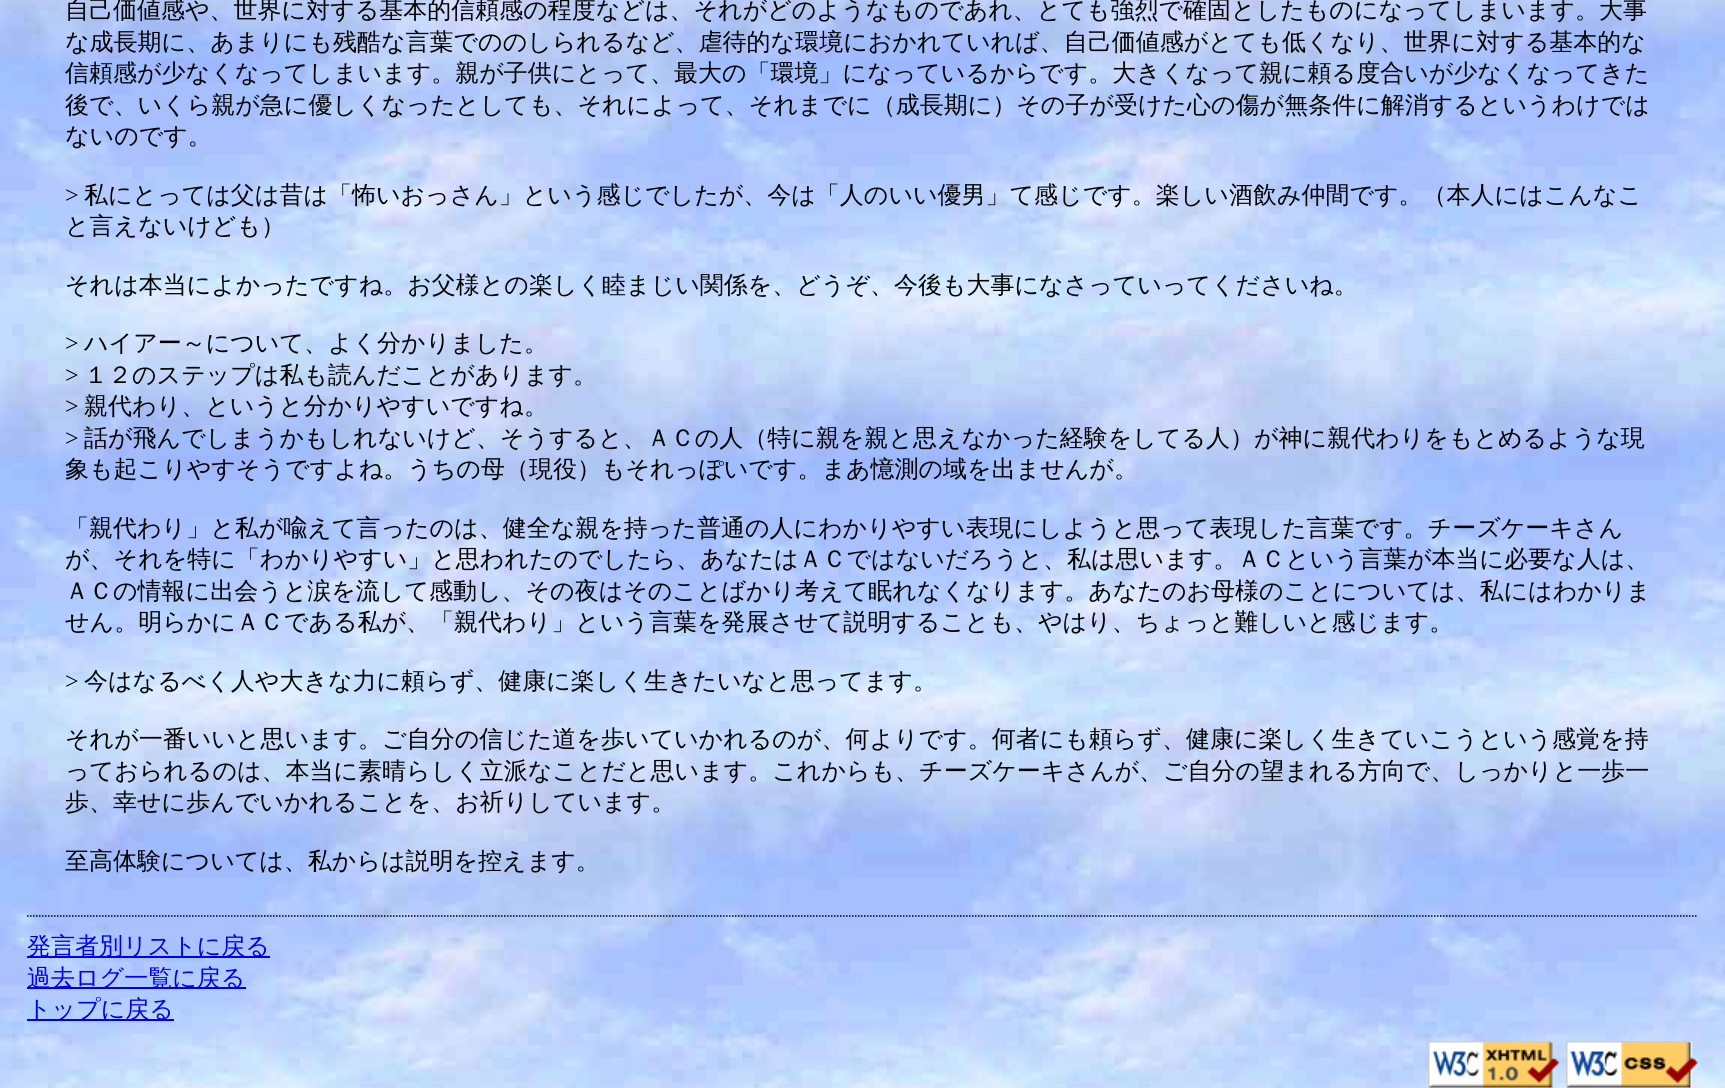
#include <cairo/cairo.h>
#include <math.h>
#include <stddef.h>

typedef struct { double x, y; const char *s; } line_t;
typedef struct { double x, y, w, h; unsigned color; } box_t;
static cairo_t *cr;

static void rgb(unsigned color)
{
	cairo_set_source_rgb(cr, (color >> 16) / 255.0, (color >> 8 & 255) / 255.0, (color & 255) / 255.0);
}

static void image(const char *path, double x, double y, double w, double h)
{
	cairo_surface_t *image = cairo_image_surface_create_from_png(path);
	cairo_save(cr);
	cairo_set_source_surface(cr, image, x, y);
	cairo_rectangle(cr, x, y, w, h);
	cairo_fill(cr);
	cairo_restore(cr);
	cairo_surface_destroy(image);
}

int main(void) {
	cairo_surface_t *surface = cairo_image_surface_create(CAIRO_FORMAT_RGB24, 1725, 1088);
	cr = cairo_create(surface);
	cairo_font_options_t *options = cairo_font_options_create();
	cairo_font_options_set_hint_metrics(options, CAIRO_HINT_METRICS_OFF);
	cairo_font_options_set_hint_style(options, CAIRO_HINT_STYLE_NONE);
	cairo_set_font_options(cr, options);
	cairo_set_miter_limit(cr, 4);
	rgb(0xffffff);
	cairo_paint(cr);
	image("img/1.png", 0, 0, 1725, 1088);
	cairo_new_path(cr);
	cairo_move_to(cr, 27, 916);
	cairo_line_to(cr, 1698, 916);
	rgb(0x000000);
	cairo_set_line_width(cr, 1.5);
	cairo_set_dash(cr, (double[]){1.5, 1.5}, 2, 0);
	cairo_stroke(cr);
	{
		static const box_t items[] = {
			{27, 956, 243, 2, 0x0000ee},
			{27, 987, 219, 2, 0x0000ee},
			{27, 1019, 147, 2, 0x0000ee},
		};
		for (size_t i = 0; i < sizeof items / sizeof *items; i++) {
			rgb(items[i].color);
			cairo_rectangle(cr, items[i].x, items[i].y, items[i].w, items[i].h);
			cairo_fill(cr);
		}
	}
	image("img/2.png", 1428, 1041, 132, 47);
	image("img/3.png", 1566, 1041, 132, 47);
	cairo_select_font_face(cr, "WenQuanYi Zen Hei Medium", CAIRO_FONT_SLANT_NORMAL, CAIRO_FONT_WEIGHT_NORMAL);
	cairo_set_font_size(cr, 24);
	rgb(0x000000);
	{
		static const line_t items[] = {
			{65, 18, "自己価値感や、世界に対する基本的信頼感の程度などは、それがどのようなものであれ、とても強烈で確固としたものになってしまいます。大事"},
			{65, 50, "な成長期に、あまりにも残酷な言葉でののしられるなど、虐待的な環境におかれていれば、自己価値感がとても低くなり、世界に対する基本的な"},
			{65, 81, "信頼感が少なくなってしまいます。親が子供にとって、最大の「環境」になっているからです。大きくなって親に頼る度合いが少なくなってきた"},
			{65, 113, "後で、いくら親が急に優しくなったとしても、それによって、それまでに（成長期に）その子が受けた心の傷が無条件に解消するというわけでは"},
			{65, 144, "ないのです。"},
		};
		for (size_t i = 0; i < sizeof items / sizeof *items; i++) {
			cairo_move_to(cr, items[i].x, items[i].y);
			cairo_show_text(cr, items[i].s);
		}
	}
	cairo_select_font_face(cr, "Liberation Serif", CAIRO_FONT_SLANT_NORMAL, CAIRO_FONT_WEIGHT_NORMAL);
	cairo_move_to(cr, 65, 203);
	cairo_show_text(cr, ">");
	cairo_select_font_face(cr, "WenQuanYi Zen Hei Medium", CAIRO_FONT_SLANT_NORMAL, CAIRO_FONT_WEIGHT_NORMAL);
	{
		static const line_t items[] = {
			{84, 203, "私にとっては父は昔は「怖いおっさん」という感じでしたが、今は「人のいい優男」て感じです。楽しい酒飲み仲間です。（本人にはこんなこ"},
			{65, 234, "と言えないけども）"},
			{65, 293, "それは本当によかったですね。お父様との楽しく睦まじい関係を、どうぞ、今後も大事になさっていってくださいね。"},
		};
		for (size_t i = 0; i < sizeof items / sizeof *items; i++) {
			cairo_move_to(cr, items[i].x, items[i].y);
			cairo_show_text(cr, items[i].s);
		}
	}
	cairo_select_font_face(cr, "Liberation Serif", CAIRO_FONT_SLANT_NORMAL, CAIRO_FONT_WEIGHT_NORMAL);
	cairo_move_to(cr, 65, 351);
	cairo_show_text(cr, ">");
	cairo_select_font_face(cr, "WenQuanYi Zen Hei Medium", CAIRO_FONT_SLANT_NORMAL, CAIRO_FONT_WEIGHT_NORMAL);
	cairo_move_to(cr, 84, 351);
	cairo_show_text(cr, "ハイアー～について、よく分かりました。");
	cairo_select_font_face(cr, "Liberation Serif", CAIRO_FONT_SLANT_NORMAL, CAIRO_FONT_WEIGHT_NORMAL);
	cairo_move_to(cr, 65, 383);
	cairo_show_text(cr, ">");
	cairo_select_font_face(cr, "WenQuanYi Zen Hei Medium", CAIRO_FONT_SLANT_NORMAL, CAIRO_FONT_WEIGHT_NORMAL);
	cairo_move_to(cr, 84, 383);
	cairo_show_text(cr, "１２のステップは私も読んだことがあります。");
	cairo_select_font_face(cr, "Liberation Serif", CAIRO_FONT_SLANT_NORMAL, CAIRO_FONT_WEIGHT_NORMAL);
	cairo_move_to(cr, 65, 414);
	cairo_show_text(cr, ">");
	cairo_select_font_face(cr, "WenQuanYi Zen Hei Medium", CAIRO_FONT_SLANT_NORMAL, CAIRO_FONT_WEIGHT_NORMAL);
	cairo_move_to(cr, 84, 414);
	cairo_show_text(cr, "親代わり、というと分かりやすいですね。");
	cairo_select_font_face(cr, "Liberation Serif", CAIRO_FONT_SLANT_NORMAL, CAIRO_FONT_WEIGHT_NORMAL);
	cairo_move_to(cr, 65, 446);
	cairo_show_text(cr, ">");
	cairo_select_font_face(cr, "WenQuanYi Zen Hei Medium", CAIRO_FONT_SLANT_NORMAL, CAIRO_FONT_WEIGHT_NORMAL);
	{
		static const line_t items[] = {
			{84, 446, "話が飛んでしまうかもしれないけど、そうすると、ＡＣの人（特に親を親と思えなかった経験をしてる人）が神に親代わりをもとめるような現"},
			{65, 477, "象も起こりやすそうですよね。うちの母（現役）もそれっぽいです。まあ憶測の域を出ませんが。"},
			{65, 536, "「親代わり」と私が喩えて言ったのは、健全な親を持った普通の人にわかりやすい表現にしようと思って表現した言葉です。チーズケーキさん"},
			{65, 567, "が、それを特に「わかりやすい」と思われたのでしたら、あなたはＡＣではないだろうと、私は思います。ＡＣという言葉が本当に必要な人は、"},
			{65, 599, "ＡＣの情報に出会うと涙を流して感動し、その夜はそのことばかり考えて眠れなくなります。あなたのお母様のことについては、私にはわかりま"},
			{65, 630, "せん。明らかにＡＣである私が、「親代わり」という言葉を発展させて説明することも、やはり、ちょっと難しいと感じます。"},
		};
		for (size_t i = 0; i < sizeof items / sizeof *items; i++) {
			cairo_move_to(cr, items[i].x, items[i].y);
			cairo_show_text(cr, items[i].s);
		}
	}
	cairo_select_font_face(cr, "Liberation Serif", CAIRO_FONT_SLANT_NORMAL, CAIRO_FONT_WEIGHT_NORMAL);
	cairo_move_to(cr, 65, 689);
	cairo_show_text(cr, ">");
	cairo_select_font_face(cr, "WenQuanYi Zen Hei Medium", CAIRO_FONT_SLANT_NORMAL, CAIRO_FONT_WEIGHT_NORMAL);
	{
		static const line_t items[] = {
			{84, 689, "今はなるべく人や大きな力に頼らず、健康に楽しく生きたいなと思ってます。"},
			{65, 747, "それが一番いいと思います。ご自分の信じた道を歩いていかれるのが、何よりです。何者にも頼らず、健康に楽しく生きていこうという感覚を持"},
			{65, 779, "っておられるのは、本当に素晴らしく立派なことだと思います。これからも、チーズケーキさんが、ご自分の望まれる方向で、しっかりと一歩一"},
			{65, 810, "歩、幸せに歩んでいかれることを、お祈りしています。"},
			{65, 869, "至高体験については、私からは説明を控えます。"},
		};
		for (size_t i = 0; i < sizeof items / sizeof *items; i++) {
			cairo_move_to(cr, items[i].x, items[i].y);
			cairo_show_text(cr, items[i].s);
		}
	}
	rgb(0x0000ee);
	{
		static const line_t items[] = {
			{27, 954, "発言者別リストに戻る"},
			{27, 986, "過去ログ一覧に戻る"},
			{27, 1017, "トップに戻る"},
		};
		for (size_t i = 0; i < sizeof items / sizeof *items; i++) {
			cairo_move_to(cr, items[i].x, items[i].y);
			cairo_show_text(cr, items[i].s);
		}
	}
	cairo_surface_write_to_png(surface, "page.png");
	cairo_font_options_destroy(options);
	cairo_destroy(cr);
	cairo_surface_destroy(surface);
	return 0;
}
